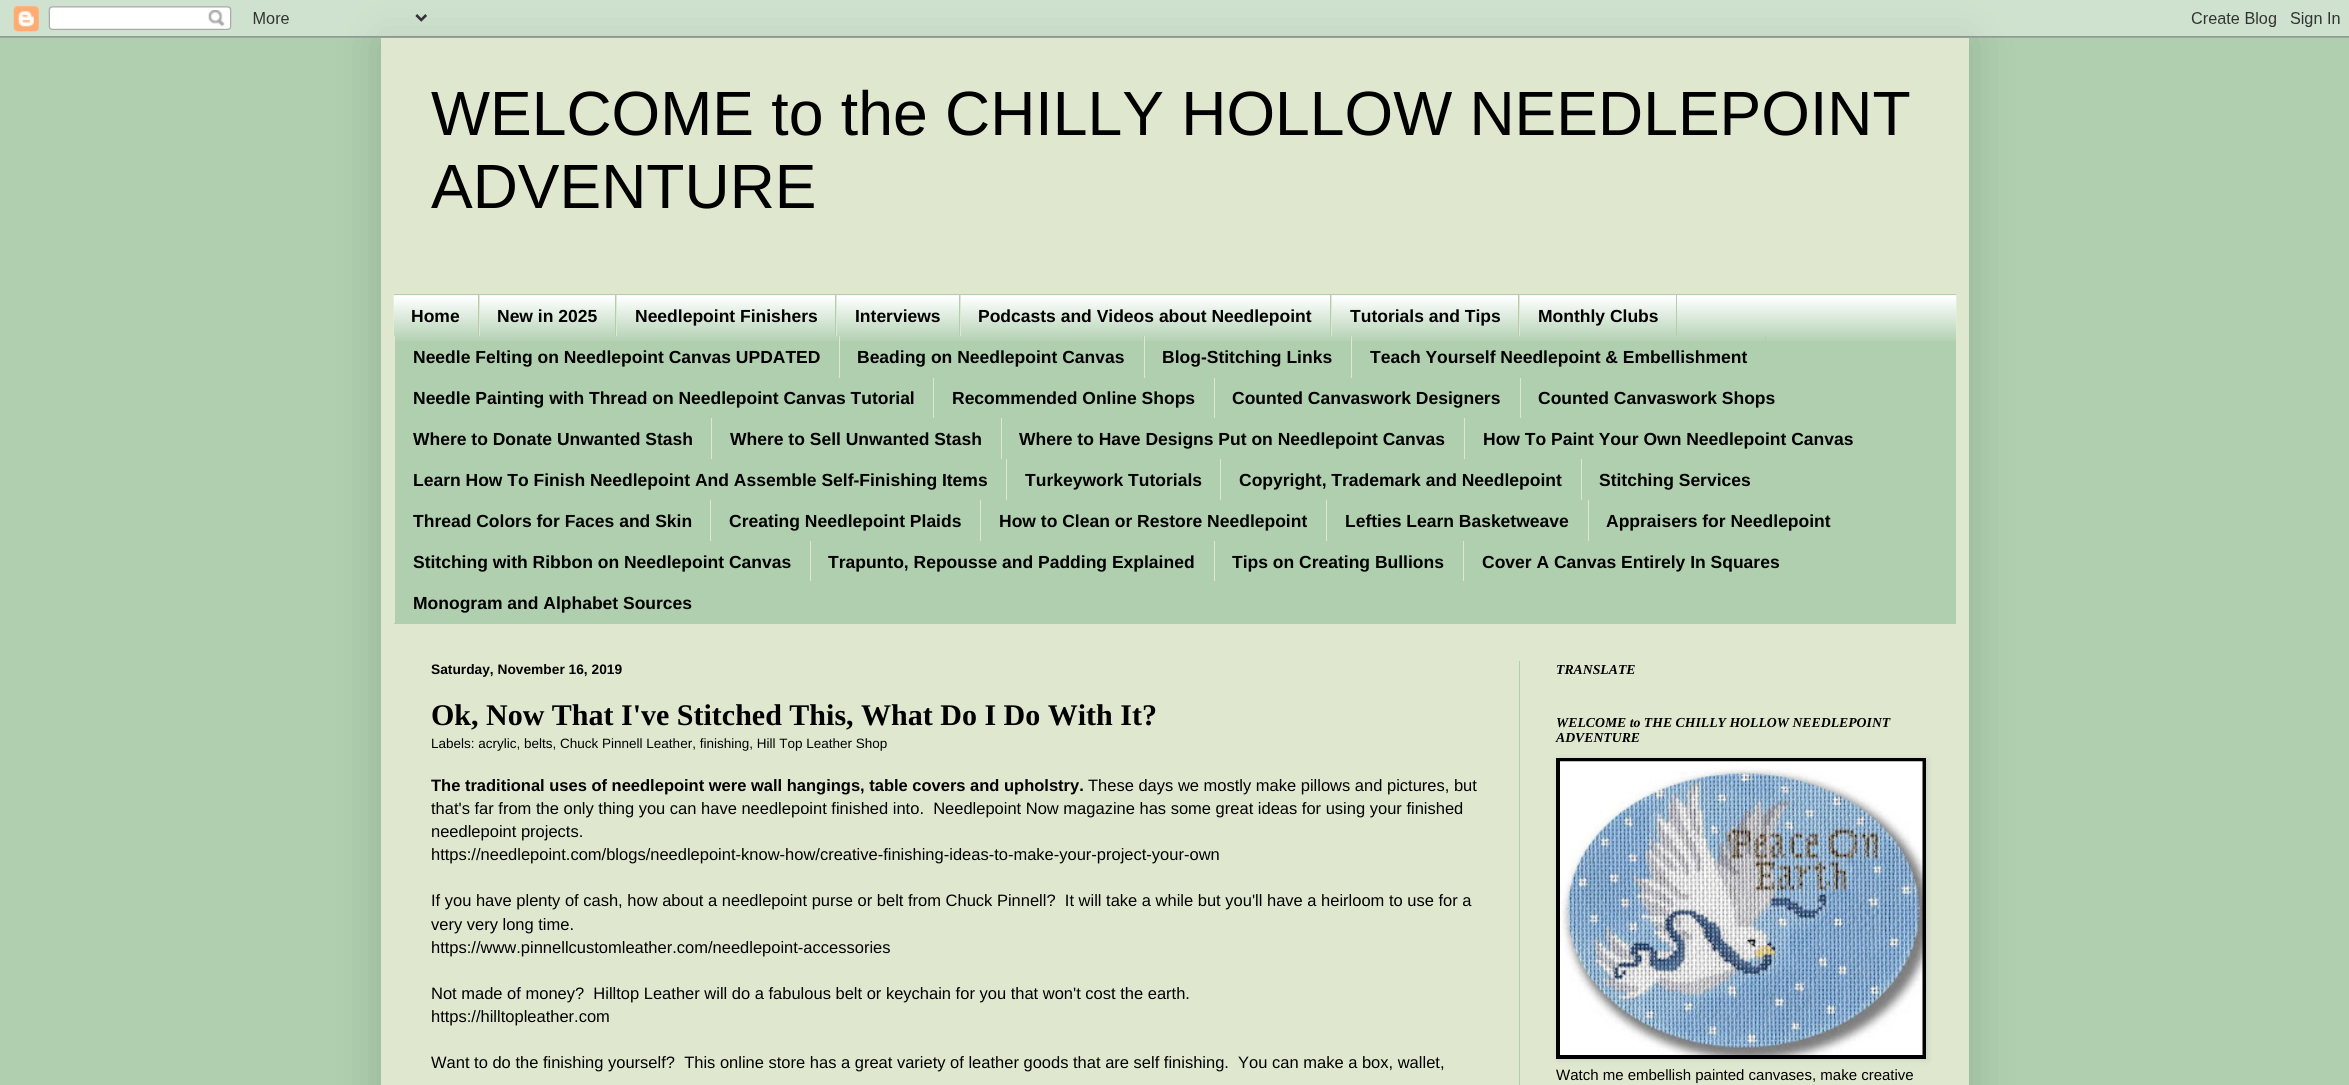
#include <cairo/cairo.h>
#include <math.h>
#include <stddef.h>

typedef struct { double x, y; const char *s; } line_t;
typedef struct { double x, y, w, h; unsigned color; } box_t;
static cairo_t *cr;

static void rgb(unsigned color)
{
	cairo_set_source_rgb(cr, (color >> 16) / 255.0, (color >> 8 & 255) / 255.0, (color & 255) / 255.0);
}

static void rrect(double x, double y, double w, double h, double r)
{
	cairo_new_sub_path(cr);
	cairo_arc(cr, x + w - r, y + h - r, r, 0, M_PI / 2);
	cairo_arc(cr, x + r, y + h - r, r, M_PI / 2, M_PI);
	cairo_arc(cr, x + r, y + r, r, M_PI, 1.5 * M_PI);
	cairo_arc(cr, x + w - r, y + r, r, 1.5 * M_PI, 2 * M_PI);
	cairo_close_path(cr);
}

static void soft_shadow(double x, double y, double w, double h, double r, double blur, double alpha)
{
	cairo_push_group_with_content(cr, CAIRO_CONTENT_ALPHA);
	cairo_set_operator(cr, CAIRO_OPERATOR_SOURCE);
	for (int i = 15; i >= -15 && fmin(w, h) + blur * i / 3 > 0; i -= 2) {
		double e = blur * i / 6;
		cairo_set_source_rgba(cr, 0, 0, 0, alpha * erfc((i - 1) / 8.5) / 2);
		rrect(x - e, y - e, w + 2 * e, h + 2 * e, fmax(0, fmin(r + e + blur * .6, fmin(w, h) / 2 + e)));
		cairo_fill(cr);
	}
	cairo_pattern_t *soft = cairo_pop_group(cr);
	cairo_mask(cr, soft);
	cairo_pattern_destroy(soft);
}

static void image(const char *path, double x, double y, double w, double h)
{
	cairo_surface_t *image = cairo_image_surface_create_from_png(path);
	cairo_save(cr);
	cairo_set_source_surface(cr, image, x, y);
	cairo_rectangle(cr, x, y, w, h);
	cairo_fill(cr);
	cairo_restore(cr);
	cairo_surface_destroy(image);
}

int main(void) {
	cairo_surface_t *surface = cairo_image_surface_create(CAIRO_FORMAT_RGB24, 2349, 1085);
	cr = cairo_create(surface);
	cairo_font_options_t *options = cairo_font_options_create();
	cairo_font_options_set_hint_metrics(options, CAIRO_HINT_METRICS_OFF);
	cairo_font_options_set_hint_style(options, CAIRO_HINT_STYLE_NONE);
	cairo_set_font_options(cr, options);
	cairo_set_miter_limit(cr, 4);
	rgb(0xafcfaf);
	cairo_paint(cr);
	rgb(0x000000);
	soft_shadow(381, 38, 1588, 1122, 0, 25, 0.15);
	image("img/1.png", 0, 0, 2349, 38);
	rgb(0xdfe8cf);
	cairo_rectangle(cr, 381, 38, 1588, 1047);
	cairo_fill(cr);
	rgb(0xafcfaf);
	cairo_rectangle(cr, 394, 295, 1562, 329);
	cairo_fill(cr);
	image("img/2.png", 393, 294, 1564, 47);
	{
		static const box_t items[] = {
			{394, 294, 1562, 1, 0xafcfaf},
			{478, 295, 1, 41, 0xafcfaf},
			{615, 295, 1, 41, 0xafcfaf},
			{479, 295, 1, 41, 0xdfe8cf},
			{835, 295, 1, 41, 0xafcfaf},
			{616, 295, 1, 41, 0xdfe8cf},
			{959, 295, 1, 41, 0xafcfaf},
			{836, 295, 1, 41, 0xdfe8cf},
			{1330, 295, 1, 41, 0xafcfaf},
			{960, 295, 1, 41, 0xdfe8cf},
			{1518, 295, 1, 41, 0xafcfaf},
			{1331, 295, 1, 41, 0xdfe8cf},
			{1676, 295, 1, 41, 0xafcfaf},
			{1519, 295, 1, 41, 0xdfe8cf},
			{838, 336, 1, 5, 0xafcfaf},
			{394, 336, 1, 287, 0xdfe8cf},
			{1143, 336, 1, 5, 0xafcfaf},
			{839, 336, 1, 42, 0xdfe8cf},
			{1350, 336, 1, 5, 0xafcfaf},
			{1144, 336, 1, 42, 0xdfe8cf},
			{1765, 336, 1, 5, 0xafcfaf},
			{1351, 336, 1, 42, 0xdfe8cf},
			{933, 378, 1, 40, 0xdfe8cf},
			{1214, 378, 1, 40, 0xdfe8cf},
			{1520, 378, 1, 40, 0xdfe8cf},
			{711, 418, 1, 41, 0xdfe8cf},
			{1001, 418, 1, 41, 0xdfe8cf},
			{1464, 418, 1, 41, 0xdfe8cf},
			{1006, 459, 1, 41, 0xdfe8cf},
			{1220, 459, 1, 41, 0xdfe8cf},
			{1581, 459, 1, 41, 0xdfe8cf},
			{710, 500, 1, 41, 0xdfe8cf},
			{980, 500, 1, 41, 0xdfe8cf},
			{1326, 500, 1, 41, 0xdfe8cf},
			{1588, 500, 1, 41, 0xdfe8cf},
			{810, 541, 1, 40, 0xdfe8cf},
			{1214, 541, 1, 40, 0xdfe8cf},
			{1463, 541, 1, 40, 0xdfe8cf},
			{1519, 661, 1, 424, 0xafcfaf},
		};
		for (size_t i = 0; i < sizeof items / sizeof *items; i++) {
			rgb(items[i].color);
			cairo_rectangle(cr, items[i].x, items[i].y, items[i].w, items[i].h);
			cairo_fill(cr);
		}
	}
	rgb(0x000000);
	soft_shadow(1558, 759, 370, 301, 0, 3, 0.1);
	rgb(0x000000);
	cairo_rectangle(cr, 1556, 758, 370, 301);
	cairo_fill(cr);
	image("img/3.png", 1560, 761, 363, 294);
	cairo_select_font_face(cr, "Liberation Sans", CAIRO_FONT_SLANT_NORMAL, CAIRO_FONT_WEIGHT_NORMAL);
	cairo_set_font_size(cr, 62.5);
	cairo_move_to(cr, 431, 135);
	cairo_show_text(cr, "WELCOME to the CHILLY HOLLOW NEEDLEPOINT");
	cairo_move_to(cr, 431, 208);
	cairo_show_text(cr, "ADVENTURE");
	cairo_select_font_face(cr, "Liberation Sans", CAIRO_FONT_SLANT_NORMAL, CAIRO_FONT_WEIGHT_BOLD);
	cairo_set_font_size(cr, 17.5);
	{
		static const line_t items[] = {
			{411, 322, "Home"},
			{497, 322, "New in 2025"},
			{635, 322, "Needlepoint Finishers"},
			{855, 322, "Interviews"},
			{978, 322, "Podcasts and Videos about Needlepoint"},
			{1350, 322, "Tutorials and Tips"},
			{1538, 322, "Monthly Clubs"},
			{413, 363, "Needle Felting on Needlepoint Canvas UPDATED"},
			{857, 363, "Beading on Needlepoint Canvas"},
			{1162, 363, "Blog-Stitching Links"},
			{1370, 363, "Teach Yourself Needlepoint & Embellishment"},
			{413, 404, "Needle Painting with Thread on Needlepoint Canvas Tutorial"},
			{952, 404, "Recommended Online Shops"},
			{1232, 404, "Counted Canvaswork Designers"},
			{1538, 404, "Counted Canvaswork Shops"},
			{413, 445, "Where to Donate Unwanted Stash"},
			{730, 445, "Where to Sell Unwanted Stash"},
			{1019, 445, "Where to Have Designs Put on Needlepoint Canvas"},
			{1483, 445, "How To Paint Your Own Needlepoint Canvas"},
			{413, 486, "Learn How To Finish Needlepoint And Assemble Self-Finishing Items"},
			{1025, 486, "Turkeywork Tutorials"},
			{1239, 486, "Copyright, Trademark and Needlepoint"},
			{1599, 486, "Stitching Services"},
			{413, 527, "Thread Colors for Faces and Skin"},
			{729, 527, "Creating Needlepoint Plaids"},
			{999, 527, "How to Clean or Restore Needlepoint"},
			{1345, 527, "Lefties Learn Basketweave"},
			{1606, 527, "Appraisers for Needlepoint"},
			{413, 568, "Stitching with Ribbon on Needlepoint Canvas"},
			{828, 568, "Trapunto, Repousse and Padding Explained"},
			{1232, 568, "Tips on Creating Bullions"},
			{1482, 568, "Cover A Canvas Entirely In Squares"},
			{413, 609, "Monogram and Alphabet Sources"},
		};
		for (size_t i = 0; i < sizeof items / sizeof *items; i++) {
			cairo_move_to(cr, items[i].x, items[i].y);
			cairo_show_text(cr, items[i].s);
		}
	}
	cairo_set_font_size(cr, 13.75);
	cairo_move_to(cr, 431, 674);
	cairo_show_text(cr, "Saturday, November 16, 2019");
	cairo_select_font_face(cr, "Liberation Serif", CAIRO_FONT_SLANT_NORMAL, CAIRO_FONT_WEIGHT_BOLD);
	cairo_set_font_size(cr, 30);
	cairo_move_to(cr, 431, 725);
	cairo_show_text(cr, "Ok, Now That I've Stitched This, What Do I Do With It?");
	cairo_select_font_face(cr, "Liberation Sans", CAIRO_FONT_SLANT_NORMAL, CAIRO_FONT_WEIGHT_NORMAL);
	cairo_set_font_size(cr, 13.5);
	cairo_move_to(cr, 431, 748);
	cairo_show_text(cr, "Labels: acrylic, belts, Chuck Pinnell Leather, finishing, Hill Top Leather Shop");
	cairo_select_font_face(cr, "Liberation Sans", CAIRO_FONT_SLANT_NORMAL, CAIRO_FONT_WEIGHT_BOLD);
	cairo_set_font_size(cr, 16.5);
	cairo_move_to(cr, 431, 791);
	cairo_show_text(cr, "The traditional uses of needlepoint were wall hangings, table covers and upholstry.");
	cairo_select_font_face(cr, "Liberation Sans", CAIRO_FONT_SLANT_NORMAL, CAIRO_FONT_WEIGHT_NORMAL);
	{
		static const line_t items[] = {
			{1088, 791, "These days we mostly make pillows and pictures, but"},
			{431, 814, "that's far from the only thing you can have needlepoint finished into.  Needlepoint Now magazine has some great ideas for using your finished"},
			{431, 837, "needlepoint projects."},
			{431, 860, "https://needlepoint.com/blogs/needlepoint-know-how/creative-finishing-ideas-to-make-your-project-your-own"},
			{431, 906, "If you have plenty of cash, how about a needlepoint purse or belt from Chuck Pinnell?  It will take a while but you'll have a heirloom to use for a"},
			{431, 930, "very very long time."},
			{431, 953, "https://www.pinnellcustomleather.com/needlepoint-accessories"},
			{431, 999, "Not made of money?  Hilltop Leather will do a fabulous belt or keychain for you that won't cost the earth."},
			{431, 1022, "https://hilltopleather.com"},
			{431, 1068, "Want to do the finishing yourself?  This online store has a great variety of leather goods that are self finishing.  You can make a box, wallet,"},
		};
		for (size_t i = 0; i < sizeof items / sizeof *items; i++) {
			cairo_move_to(cr, items[i].x, items[i].y);
			cairo_show_text(cr, items[i].s);
		}
	}
	cairo_select_font_face(cr, "Liberation Serif", CAIRO_FONT_SLANT_ITALIC, CAIRO_FONT_WEIGHT_BOLD);
	cairo_set_font_size(cr, 13.75);
	{
		static const line_t items[] = {
			{1556, 674, "TRANSLATE"},
			{1556, 727, "WELCOME to THE CHILLY HOLLOW NEEDLEPOINT"},
			{1556, 742, "ADVENTURE"},
		};
		for (size_t i = 0; i < sizeof items / sizeof *items; i++) {
			cairo_move_to(cr, items[i].x, items[i].y);
			cairo_show_text(cr, items[i].s);
		}
	}
	cairo_select_font_face(cr, "Liberation Sans", CAIRO_FONT_SLANT_NORMAL, CAIRO_FONT_WEIGHT_NORMAL);
	cairo_set_font_size(cr, 15);
	cairo_move_to(cr, 1556, 1080);
	cairo_show_text(cr, "Watch me embellish painted canvases, make creative");
	cairo_surface_write_to_png(surface, "page.png");
	cairo_font_options_destroy(options);
	cairo_destroy(cr);
	cairo_surface_destroy(surface);
	return 0;
}
